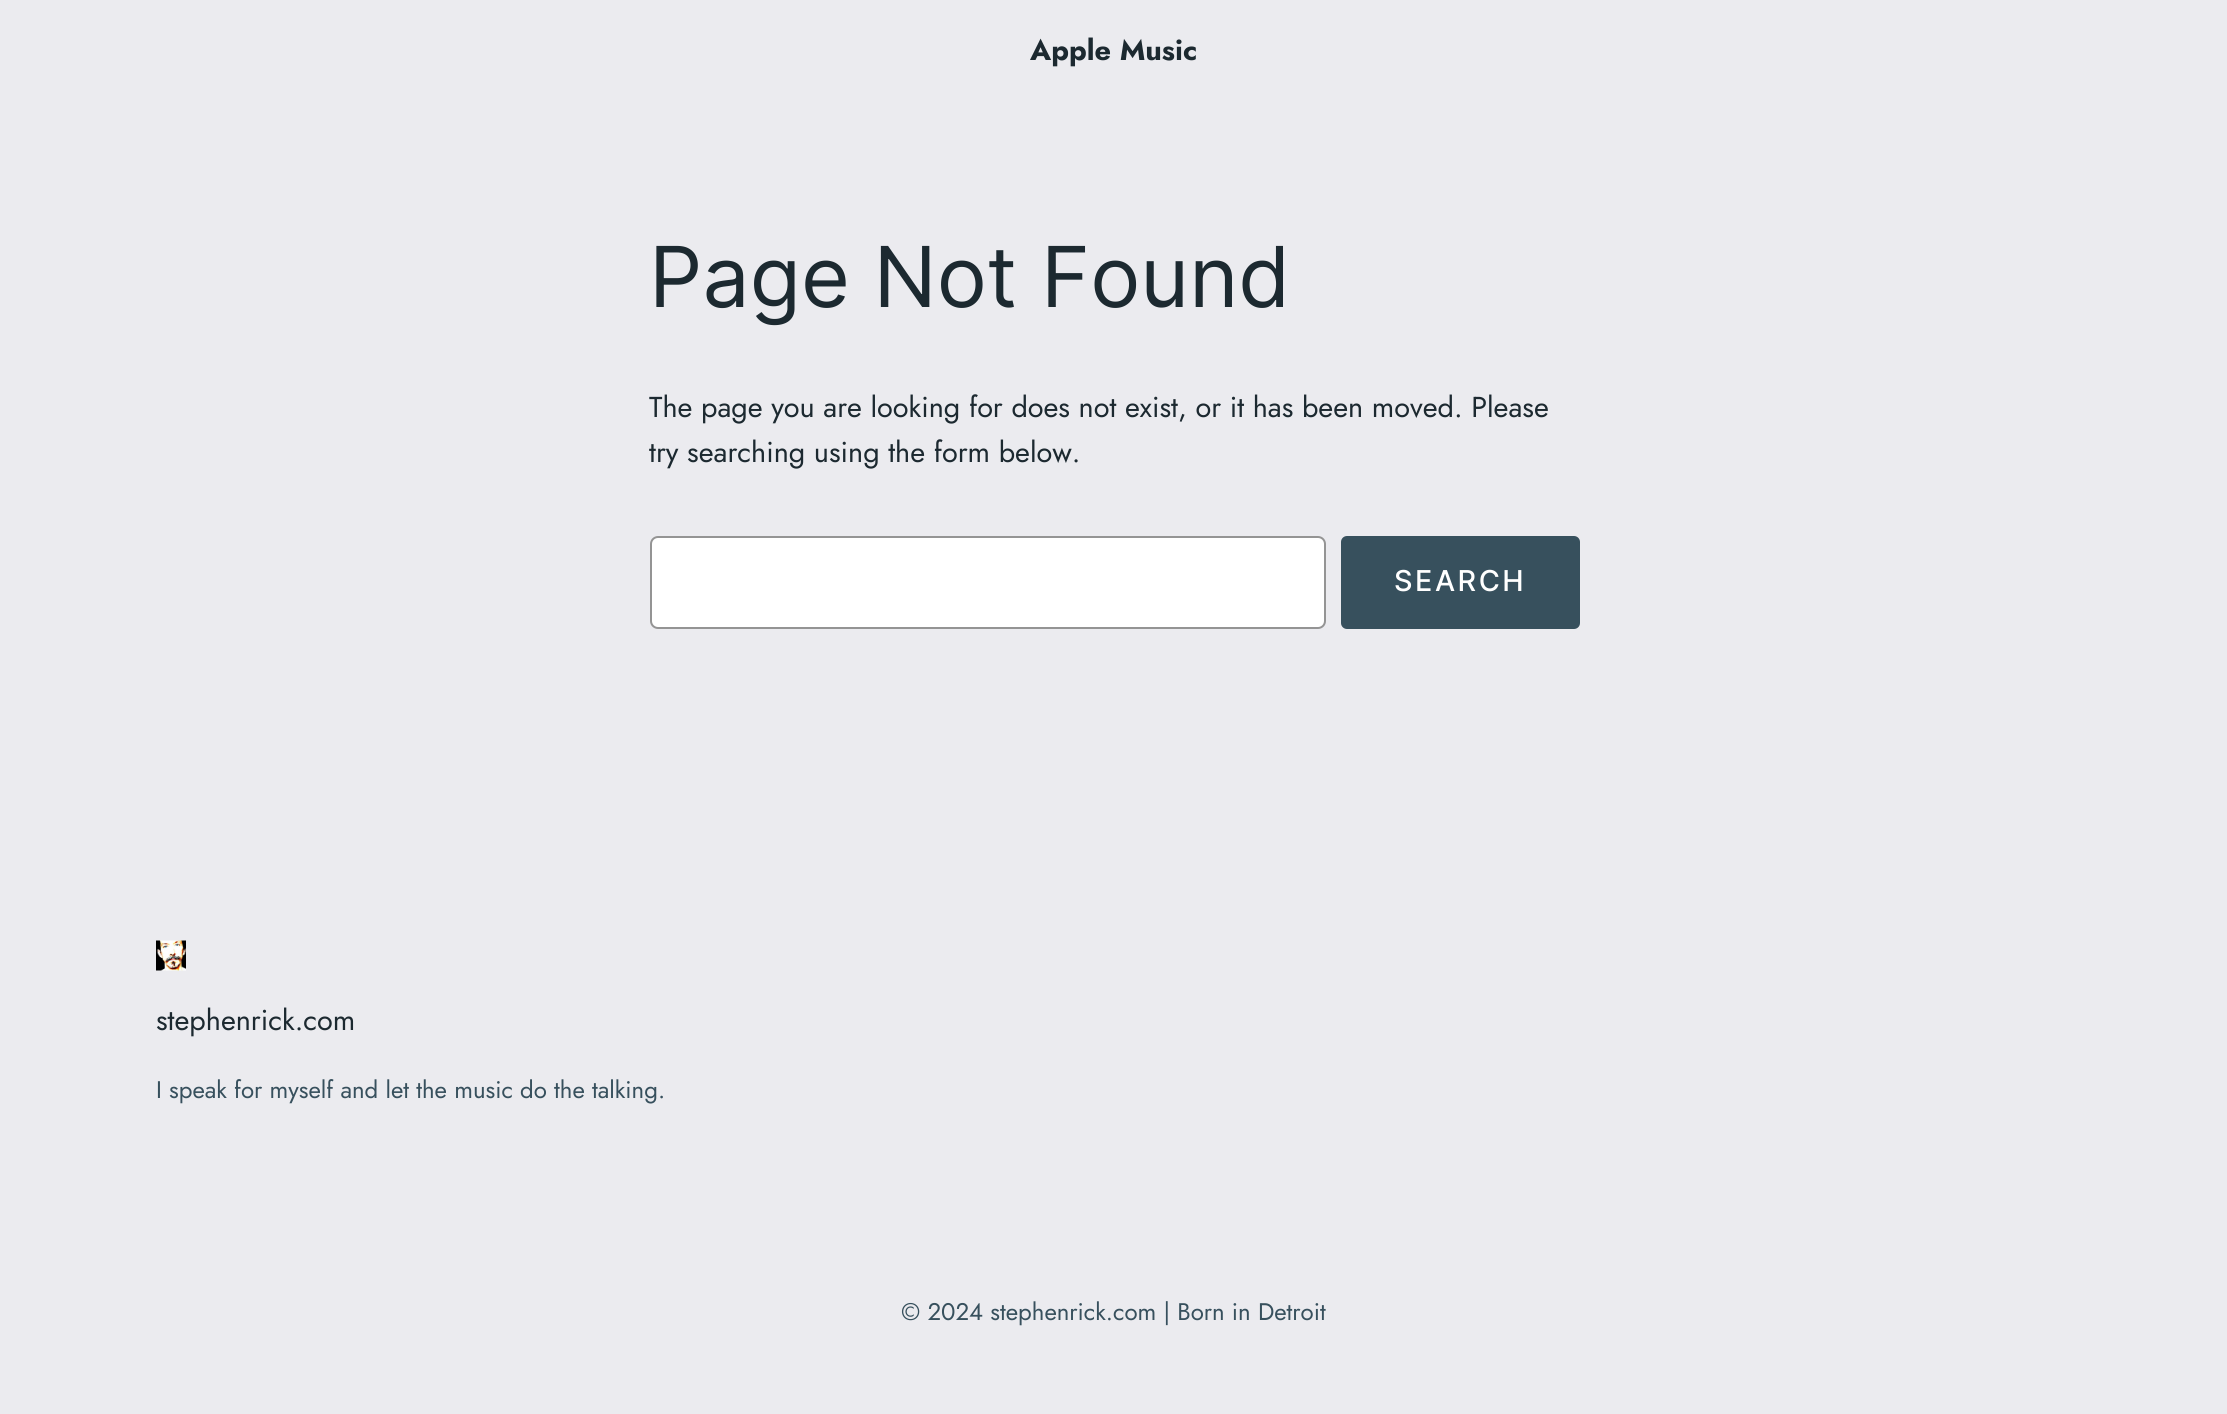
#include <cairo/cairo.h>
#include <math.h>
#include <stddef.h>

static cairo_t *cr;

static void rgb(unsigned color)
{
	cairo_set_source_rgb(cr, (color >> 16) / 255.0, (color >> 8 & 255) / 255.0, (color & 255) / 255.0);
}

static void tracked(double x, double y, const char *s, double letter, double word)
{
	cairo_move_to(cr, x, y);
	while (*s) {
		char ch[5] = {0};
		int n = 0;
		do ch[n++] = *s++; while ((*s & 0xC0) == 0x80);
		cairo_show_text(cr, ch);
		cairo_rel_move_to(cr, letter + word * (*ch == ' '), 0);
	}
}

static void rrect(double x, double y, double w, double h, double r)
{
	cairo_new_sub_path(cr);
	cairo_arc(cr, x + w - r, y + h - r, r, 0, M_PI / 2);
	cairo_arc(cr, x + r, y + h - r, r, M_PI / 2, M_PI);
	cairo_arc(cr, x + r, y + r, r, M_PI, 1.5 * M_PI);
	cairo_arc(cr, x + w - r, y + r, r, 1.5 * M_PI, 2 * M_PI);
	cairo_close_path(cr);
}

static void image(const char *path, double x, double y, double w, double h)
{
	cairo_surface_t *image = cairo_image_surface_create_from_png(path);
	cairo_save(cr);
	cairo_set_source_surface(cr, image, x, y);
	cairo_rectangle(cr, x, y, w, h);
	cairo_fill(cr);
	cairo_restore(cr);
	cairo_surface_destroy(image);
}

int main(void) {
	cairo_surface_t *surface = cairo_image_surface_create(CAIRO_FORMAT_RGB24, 2227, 1414);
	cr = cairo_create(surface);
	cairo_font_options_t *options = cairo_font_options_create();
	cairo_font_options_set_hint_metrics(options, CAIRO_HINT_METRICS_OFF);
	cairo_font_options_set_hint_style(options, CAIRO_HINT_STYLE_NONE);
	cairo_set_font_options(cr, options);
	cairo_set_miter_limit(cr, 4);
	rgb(0xebebef);
	cairo_paint(cr);
	rgb(0xffffff);
	rrect(651, 537, 674, 91, 7);
	cairo_fill_preserve(cr);
	rgb(0x949494);
	cairo_stroke(cr);
	rgb(0x37505d);
	rrect(1341, 536, 239, 93, 6);
	cairo_fill(cr);
	image("img/1.png", 156, 940, 30, 31);
	cairo_select_font_face(cr, "Jost", CAIRO_FONT_SLANT_NORMAL, CAIRO_FONT_WEIGHT_BOLD);
	cairo_set_font_size(cr, 28.8);
	rgb(0x1c2930);
	cairo_move_to(cr, 1030, 60);
	cairo_show_text(cr, "Apple Music");
	cairo_select_font_face(cr, "Inter", CAIRO_FONT_SLANT_NORMAL, CAIRO_FONT_WEIGHT_NORMAL);
	cairo_set_font_size(cr, 84);
	cairo_move_to(cr, 649, 307);
	cairo_show_text(cr, "Page Not Found");
	cairo_select_font_face(cr, "Jost", CAIRO_FONT_SLANT_NORMAL, CAIRO_FONT_WEIGHT_NORMAL);
	cairo_set_font_size(cr, 28.8);
	cairo_move_to(cr, 649, 417);
	cairo_show_text(cr, "The page you are looking for does not exist, or it has been moved. Please");
	cairo_move_to(cr, 649, 462);
	cairo_show_text(cr, "try searching using the form below.");
	cairo_select_font_face(cr, "Inter Medium", CAIRO_FONT_SLANT_NORMAL, CAIRO_FONT_WEIGHT_NORMAL);
	rgb(0xffffff);
	tracked(1394, 591, "SEARCH", 2.5, 0);
	cairo_select_font_face(cr, "Jost", CAIRO_FONT_SLANT_NORMAL, CAIRO_FONT_WEIGHT_NORMAL);
	rgb(0x1c2930);
	cairo_move_to(cr, 156, 1030);
	cairo_show_text(cr, "stephenrick.com");
	cairo_set_font_size(cr, 24);
	rgb(0x37505d);
	cairo_move_to(cr, 156, 1098);
	cairo_show_text(cr, "I speak for myself and let the music do the talking.");
	cairo_move_to(cr, 901, 1320);
	cairo_show_text(cr, "© 2024 stephenrick.com | Born in Detroit");
	cairo_surface_write_to_png(surface, "page.png");
	cairo_font_options_destroy(options);
	cairo_destroy(cr);
	cairo_surface_destroy(surface);
	return 0;
}
